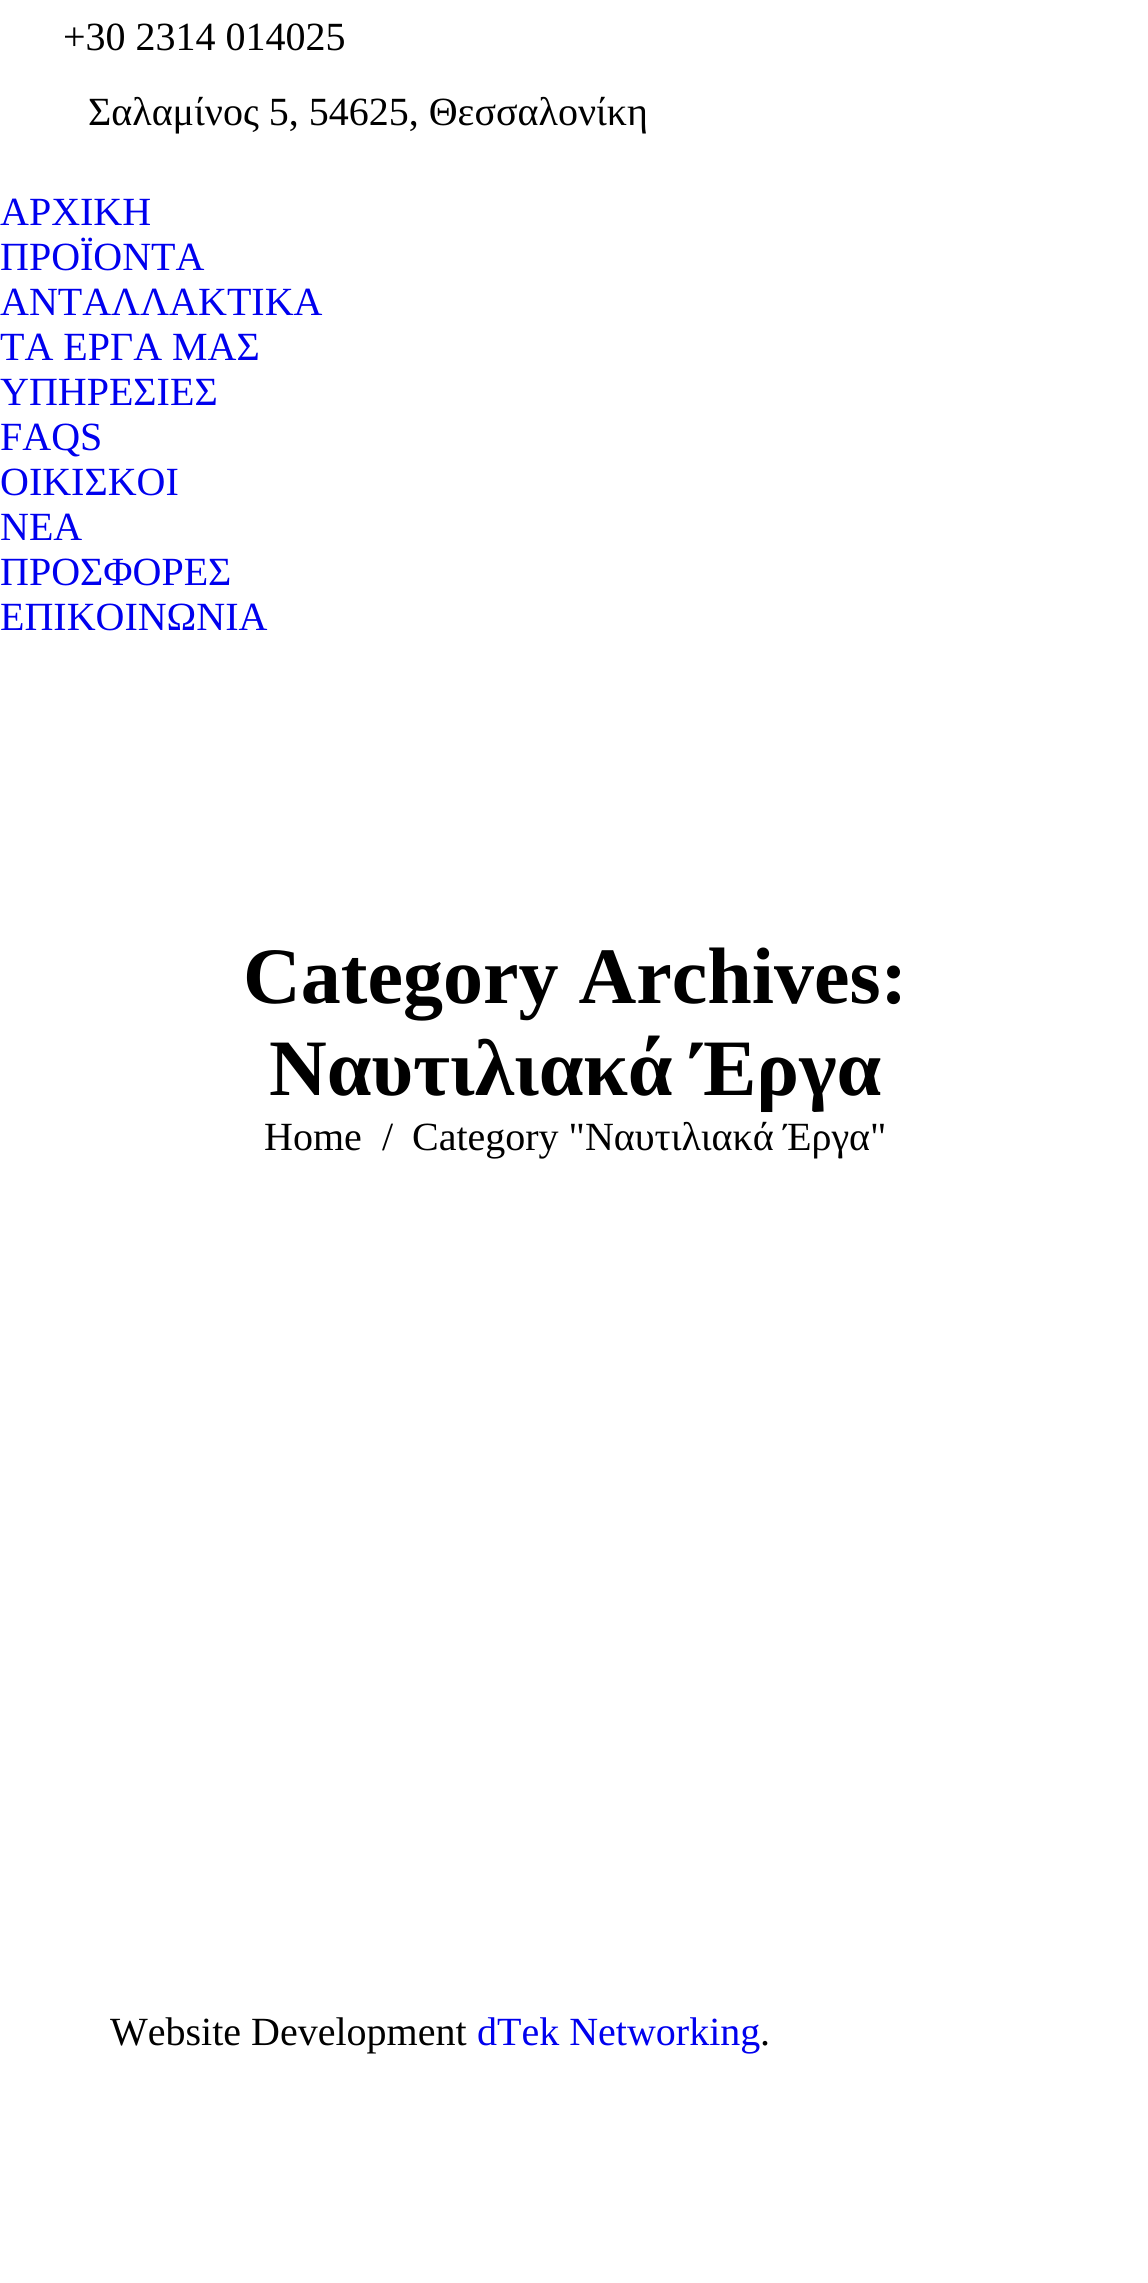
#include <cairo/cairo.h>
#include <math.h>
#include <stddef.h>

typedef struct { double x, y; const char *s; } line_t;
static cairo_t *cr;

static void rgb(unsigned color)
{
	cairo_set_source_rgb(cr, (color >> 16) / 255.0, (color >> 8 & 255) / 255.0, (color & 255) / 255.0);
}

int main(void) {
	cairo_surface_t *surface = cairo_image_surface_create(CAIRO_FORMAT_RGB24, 1148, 2283);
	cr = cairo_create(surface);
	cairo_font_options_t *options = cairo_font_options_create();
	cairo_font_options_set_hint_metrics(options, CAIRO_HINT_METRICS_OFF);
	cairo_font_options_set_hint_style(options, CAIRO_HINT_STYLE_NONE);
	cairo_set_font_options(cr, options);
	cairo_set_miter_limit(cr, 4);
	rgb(0xffffff);
	cairo_paint(cr);
	cairo_select_font_face(cr, "Liberation Serif", CAIRO_FONT_SLANT_NORMAL, CAIRO_FONT_WEIGHT_NORMAL);
	cairo_set_font_size(cr, 40);
	rgb(0x000000);
	cairo_move_to(cr, 63, 50);
	cairo_show_text(cr, "+30 2314 014025");
	cairo_move_to(cr, 88, 125);
	cairo_show_text(cr, "Σαλαμίνος 5, 54625, Θεσσαλονίκη");
	rgb(0x0000ee);
	{
		static const line_t items[] = {
			{0, 225, "ΑΡΧΙΚΗ"},
			{0, 270, "ΠΡΟΪΟΝΤΑ"},
			{0, 315, "ΑΝΤΑΛΛΑΚΤΙΚΑ"},
			{0, 360, "ΤΑ ΕΡΓΑ ΜΑΣ"},
			{0, 405, "ΥΠΗΡΕΣΙΕΣ"},
			{0, 450, "FAQS"},
			{0, 495, "ΟΙΚΙΣΚΟΙ"},
			{0, 540, "ΝΕΑ"},
			{0, 585, "ΠΡΟΣΦΟΡΕΣ"},
			{0, 630, "ΕΠΙΚΟΙΝΩΝΙΑ"},
		};
		for (size_t i = 0; i < sizeof items / sizeof *items; i++) {
			cairo_move_to(cr, items[i].x, items[i].y);
			cairo_show_text(cr, items[i].s);
		}
	}
	cairo_select_font_face(cr, "Liberation Serif", CAIRO_FONT_SLANT_NORMAL, CAIRO_FONT_WEIGHT_BOLD);
	cairo_set_font_size(cr, 80);
	rgb(0x000000);
	cairo_move_to(cr, 243, 1003);
	cairo_show_text(cr, "Category Archives:");
	cairo_move_to(cr, 269, 1095);
	cairo_show_text(cr, "Ναυτιλιακά Έργα");
	cairo_select_font_face(cr, "Liberation Serif", CAIRO_FONT_SLANT_NORMAL, CAIRO_FONT_WEIGHT_NORMAL);
	cairo_set_font_size(cr, 40);
	{
		static const line_t items[] = {
			{264, 1150, "Home"},
			{382, 1150, "/"},
			{412, 1150, "Category \"Ναυτιλιακά Έργα\""},
			{110, 2045, "Website Development"},
		};
		for (size_t i = 0; i < sizeof items / sizeof *items; i++) {
			cairo_move_to(cr, items[i].x, items[i].y);
			cairo_show_text(cr, items[i].s);
		}
	}
	rgb(0x0000ee);
	cairo_move_to(cr, 477, 2045);
	cairo_show_text(cr, "dTek Networking");
	rgb(0x000000);
	cairo_move_to(cr, 760, 2045);
	cairo_show_text(cr, ".");
	cairo_surface_write_to_png(surface, "page.png");
	cairo_font_options_destroy(options);
	cairo_destroy(cr);
	cairo_surface_destroy(surface);
	return 0;
}
